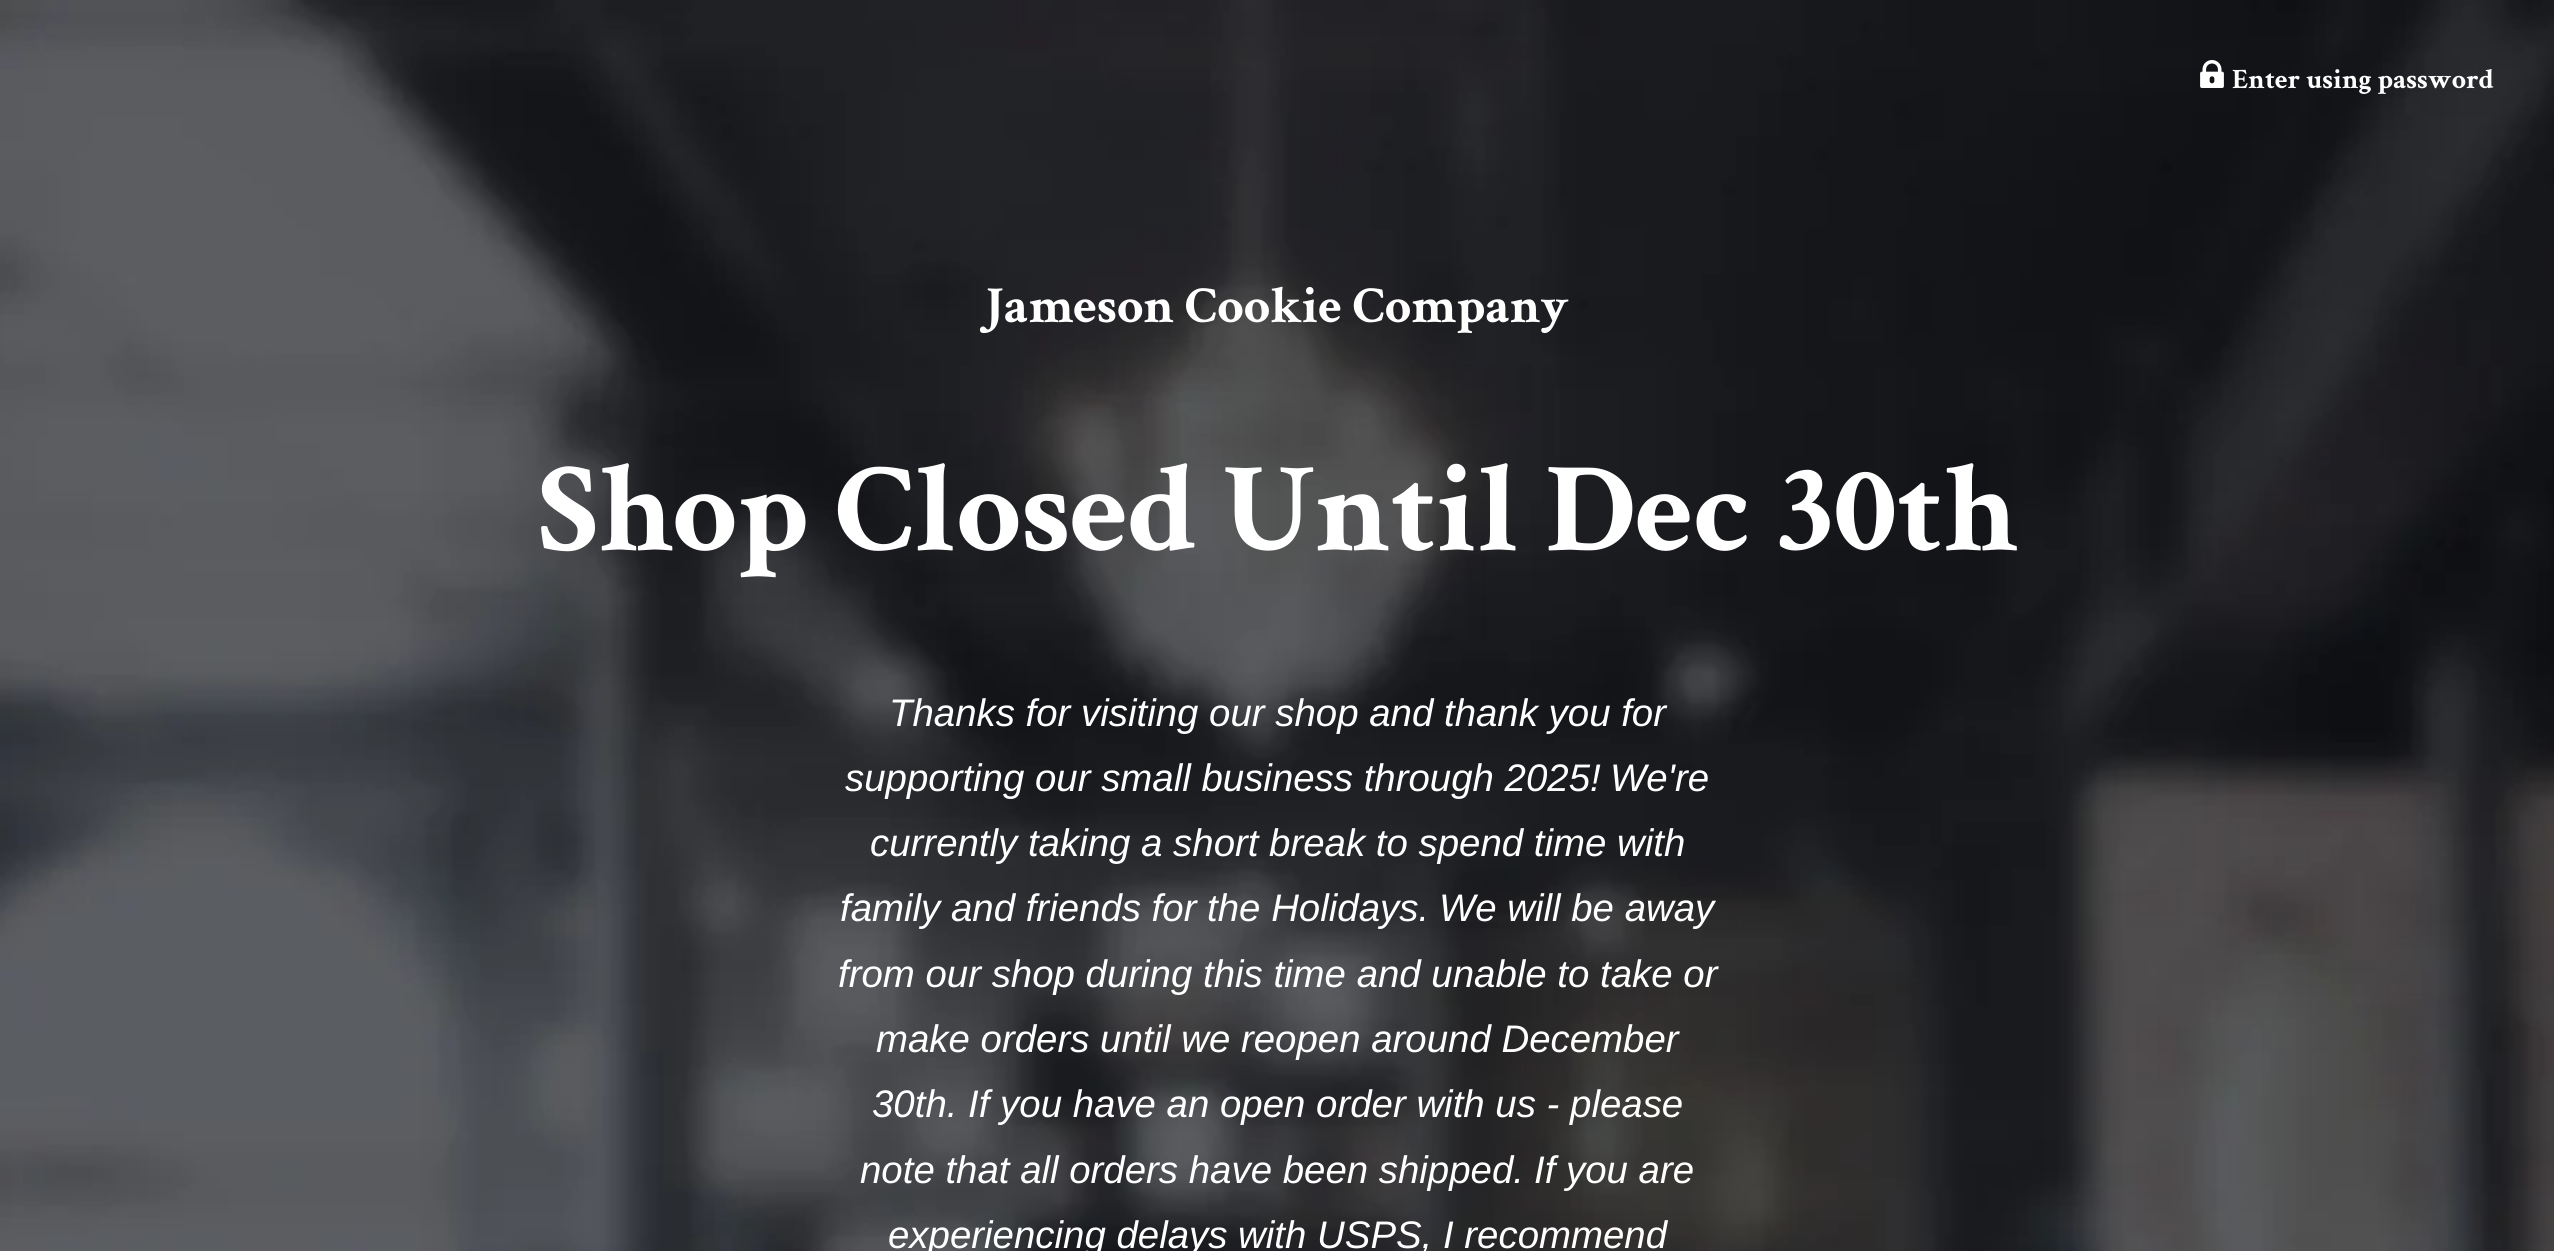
#include <cairo/cairo.h>
#include <math.h>
#include <stddef.h>

typedef struct { double x, y; const char *s; } line_t;
static cairo_t *cr;

static void rgb(unsigned color)
{
	cairo_set_source_rgb(cr, (color >> 16) / 255.0, (color >> 8 & 255) / 255.0, (color & 255) / 255.0);
}

static void image(const char *path, double x, double y, double w, double h)
{
	cairo_surface_t *image = cairo_image_surface_create_from_png(path);
	cairo_save(cr);
	cairo_set_source_surface(cr, image, x, y);
	cairo_rectangle(cr, x, y, w, h);
	cairo_fill(cr);
	cairo_restore(cr);
	cairo_surface_destroy(image);
}

int main(void) {
	cairo_surface_t *surface = cairo_image_surface_create(CAIRO_FORMAT_RGB24, 2554, 1251);
	cr = cairo_create(surface);
	cairo_font_options_t *options = cairo_font_options_create();
	cairo_font_options_set_hint_metrics(options, CAIRO_HINT_METRICS_OFF);
	cairo_font_options_set_hint_style(options, CAIRO_HINT_STYLE_NONE);
	cairo_set_font_options(cr, options);
	cairo_set_miter_limit(cr, 4);
	rgb(0xffffff);
	cairo_paint(cr);
	image("img/1.png", 0, 0, 2554, 1251);
	image("img/2.png", 2200, 60, 24, 28);
	cairo_select_font_face(cr, "Crimson Text", CAIRO_FONT_SLANT_NORMAL, CAIRO_FONT_WEIGHT_BOLD);
	cairo_set_font_size(cr, 28);
	rgb(0xffffff);
	cairo_move_to(cr, 2232, 88);
	cairo_show_text(cr, "Enter using password");
	cairo_set_font_size(cr, 52);
	cairo_move_to(cr, 985, 322);
	cairo_show_text(cr, "Jameson Cookie Company");
	cairo_set_font_size(cr, 128);
	cairo_move_to(cr, 538, 550);
	cairo_show_text(cr, "Shop Closed Until Dec 30th");
	cairo_select_font_face(cr, "Liberation Sans", CAIRO_FONT_SLANT_ITALIC, CAIRO_FONT_WEIGHT_NORMAL);
	cairo_set_font_size(cr, 38.4);
	{
		static const line_t items[] = {
			{889, 726, "Thanks for visiting our shop and thank you for"},
			{845, 791, "supporting our small business through 2025!"},
			{1610, 791, "We're"},
			{870, 856, "currently taking a short break to spend time with"},
			{840, 921, "family and friends for the Holidays."},
			{1439, 921, "We will be away"},
			{838, 987, "from our shop during this time and unable to take or"},
			{876, 1052, "make orders until we reopen around December"},
			{872, 1117, "30th. If you have an open order with us - please"},
			{860, 1183, "note that all orders have been shipped."},
			{1534, 1183, "If you are"},
			{888, 1248, "experiencing delays with USPS, I recommend"},
		};
		for (size_t i = 0; i < sizeof items / sizeof *items; i++) {
			cairo_move_to(cr, items[i].x, items[i].y);
			cairo_show_text(cr, items[i].s);
		}
	}
	cairo_surface_write_to_png(surface, "page.png");
	cairo_font_options_destroy(options);
	cairo_destroy(cr);
	cairo_surface_destroy(surface);
	return 0;
}
